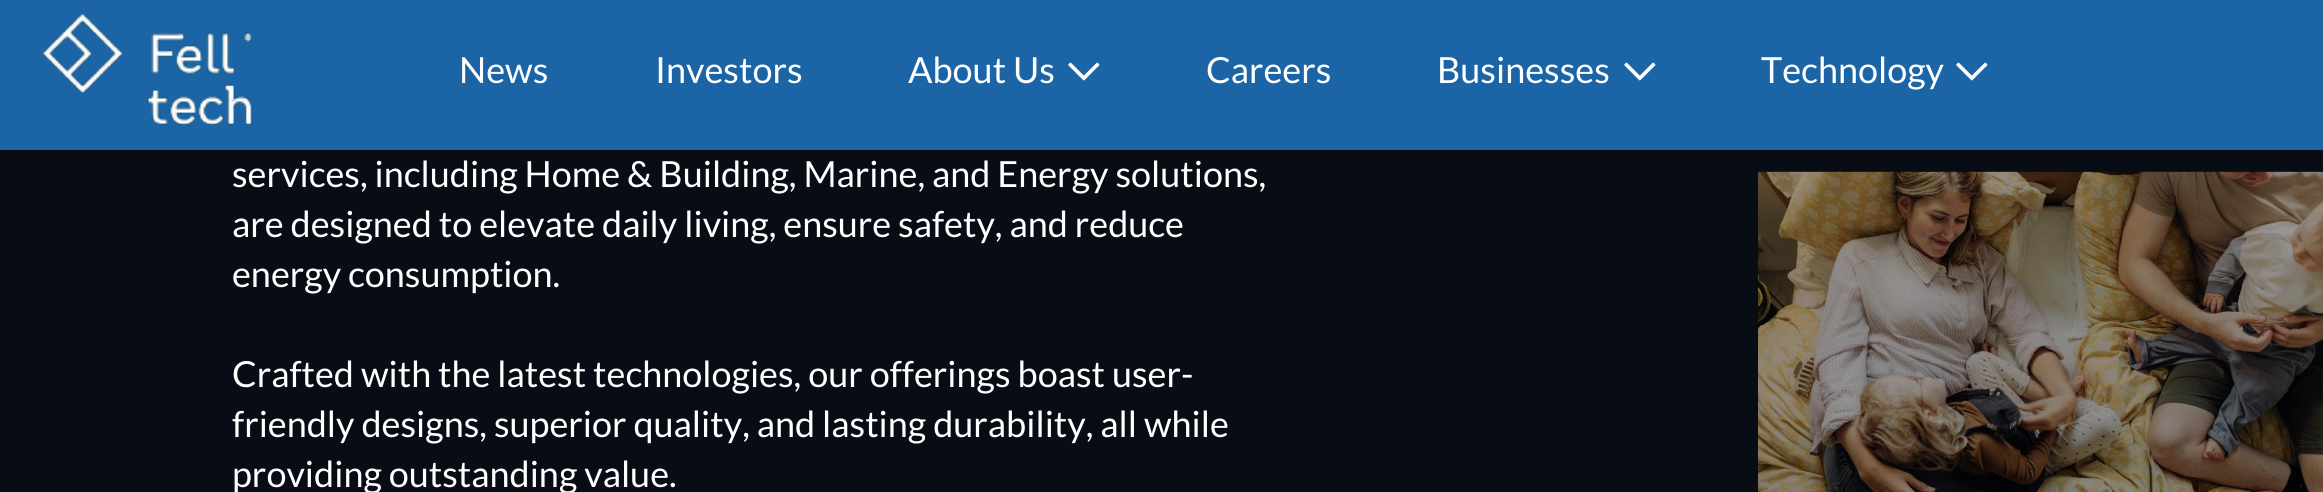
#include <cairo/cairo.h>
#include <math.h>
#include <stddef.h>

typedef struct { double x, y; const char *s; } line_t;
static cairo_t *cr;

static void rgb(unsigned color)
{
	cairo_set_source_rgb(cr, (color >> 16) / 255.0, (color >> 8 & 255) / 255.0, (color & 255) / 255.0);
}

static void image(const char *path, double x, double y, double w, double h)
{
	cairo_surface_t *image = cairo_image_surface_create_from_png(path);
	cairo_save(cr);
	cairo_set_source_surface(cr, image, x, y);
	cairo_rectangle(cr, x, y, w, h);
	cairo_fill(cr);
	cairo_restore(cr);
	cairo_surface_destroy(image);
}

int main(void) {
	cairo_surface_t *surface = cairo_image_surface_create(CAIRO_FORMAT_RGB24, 2323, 492);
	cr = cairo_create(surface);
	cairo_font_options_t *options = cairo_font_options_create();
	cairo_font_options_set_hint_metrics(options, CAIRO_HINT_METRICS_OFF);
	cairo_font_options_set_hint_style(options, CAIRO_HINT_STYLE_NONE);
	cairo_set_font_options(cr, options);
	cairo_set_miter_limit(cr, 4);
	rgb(0x080d15);
	cairo_paint(cr);
	rgb(0x1b65a6);
	cairo_rectangle(cr, 0, 0, 2323, 150);
	cairo_fill(cr);
	image("img/1.png", 41, 13, 212, 114);
	image("img/2.png", 1068, 62, 32, 19);
	image("img/2.png", 1624, 62, 32, 19);
	image("img/2.png", 1956, 62, 32, 19);
	image("img/3.png", 1758, 171, 565, 321);
	cairo_select_font_face(cr, "Lato", CAIRO_FONT_SLANT_NORMAL, CAIRO_FONT_WEIGHT_NORMAL);
	cairo_set_font_size(cr, 36);
	rgb(0xffffff);
	{
		static const line_t items[] = {
			{459, 83, "News"},
			{655, 83, "Investors"},
			{908, 83, "About Us"},
			{1206, 83, "Careers"},
			{1437, 83, "Businesses"},
			{1761, 83, "Technology"},
			{232, 187, "services, including Home & Building, Marine, and Energy solutions,"},
			{232, 237, "are designed to elevate daily living, ensure safety, and reduce"},
			{232, 287, "energy consumption."},
			{232, 387, "Crafted with the latest technologies, our offerings boast user-"},
			{232, 437, "friendly designs, superior quality, and lasting durability, all while"},
			{232, 487, "providing outstanding value."},
		};
		for (size_t i = 0; i < sizeof items / sizeof *items; i++) {
			cairo_move_to(cr, items[i].x, items[i].y);
			cairo_show_text(cr, items[i].s);
		}
	}
	cairo_surface_write_to_png(surface, "page.png");
	cairo_font_options_destroy(options);
	cairo_destroy(cr);
	cairo_surface_destroy(surface);
	return 0;
}
